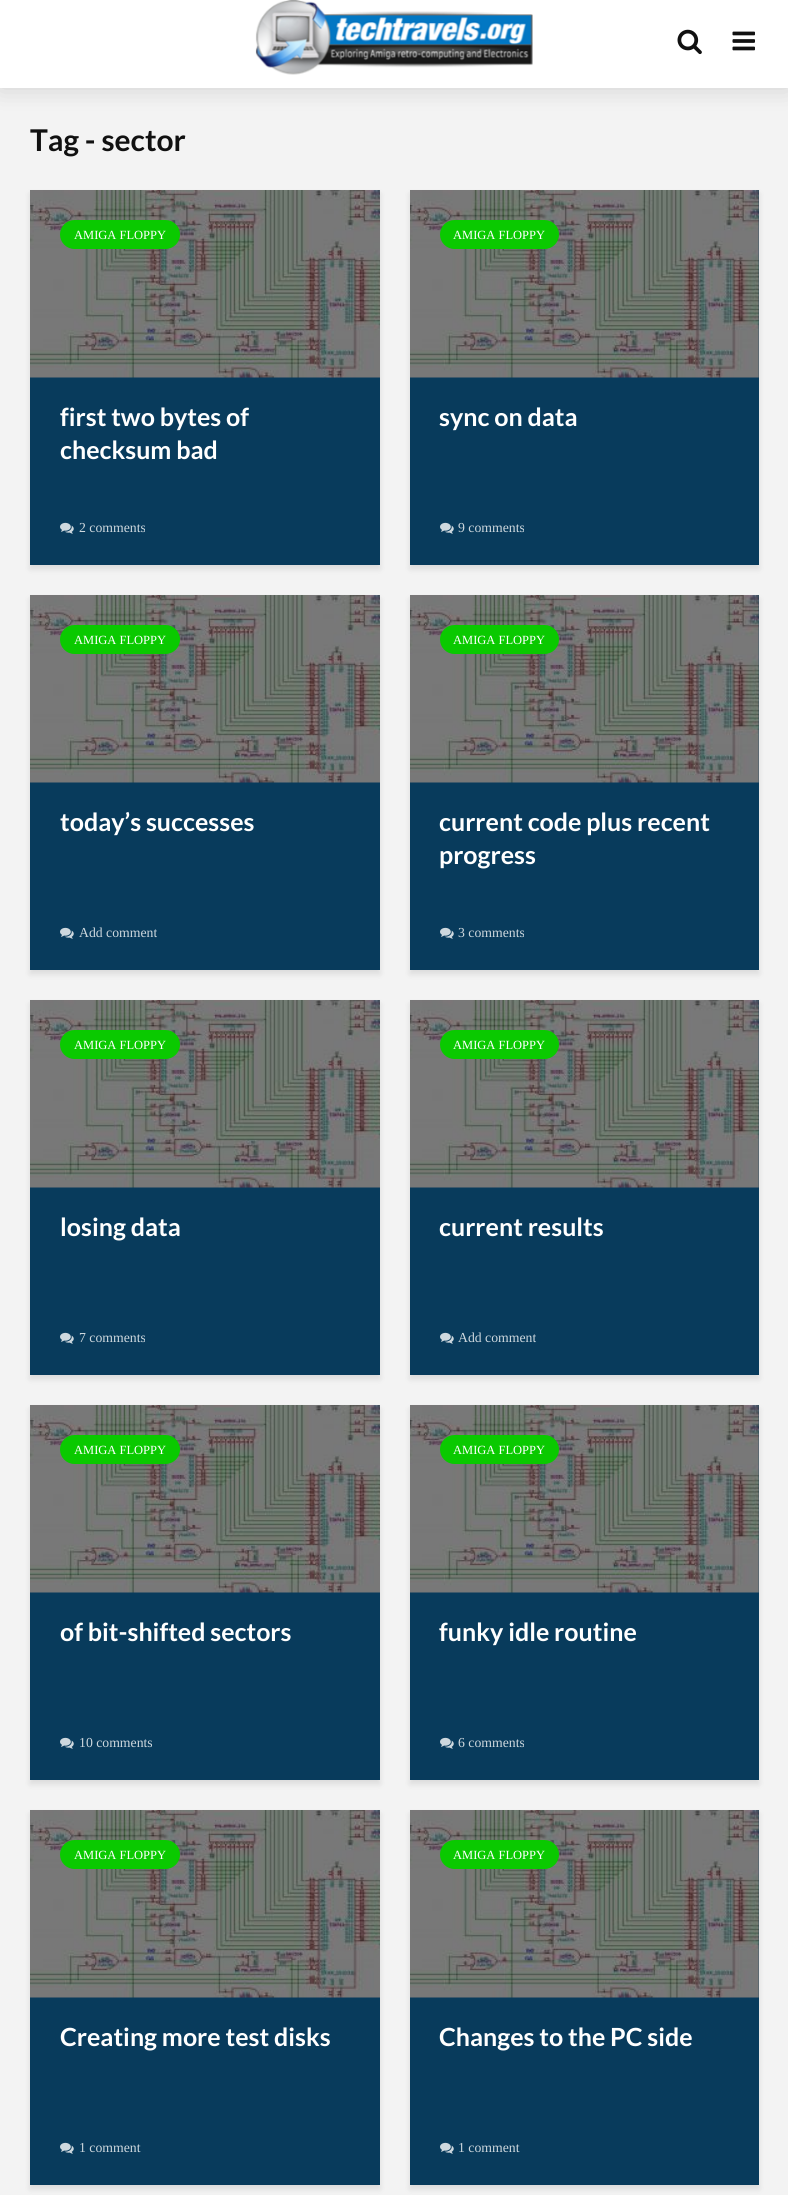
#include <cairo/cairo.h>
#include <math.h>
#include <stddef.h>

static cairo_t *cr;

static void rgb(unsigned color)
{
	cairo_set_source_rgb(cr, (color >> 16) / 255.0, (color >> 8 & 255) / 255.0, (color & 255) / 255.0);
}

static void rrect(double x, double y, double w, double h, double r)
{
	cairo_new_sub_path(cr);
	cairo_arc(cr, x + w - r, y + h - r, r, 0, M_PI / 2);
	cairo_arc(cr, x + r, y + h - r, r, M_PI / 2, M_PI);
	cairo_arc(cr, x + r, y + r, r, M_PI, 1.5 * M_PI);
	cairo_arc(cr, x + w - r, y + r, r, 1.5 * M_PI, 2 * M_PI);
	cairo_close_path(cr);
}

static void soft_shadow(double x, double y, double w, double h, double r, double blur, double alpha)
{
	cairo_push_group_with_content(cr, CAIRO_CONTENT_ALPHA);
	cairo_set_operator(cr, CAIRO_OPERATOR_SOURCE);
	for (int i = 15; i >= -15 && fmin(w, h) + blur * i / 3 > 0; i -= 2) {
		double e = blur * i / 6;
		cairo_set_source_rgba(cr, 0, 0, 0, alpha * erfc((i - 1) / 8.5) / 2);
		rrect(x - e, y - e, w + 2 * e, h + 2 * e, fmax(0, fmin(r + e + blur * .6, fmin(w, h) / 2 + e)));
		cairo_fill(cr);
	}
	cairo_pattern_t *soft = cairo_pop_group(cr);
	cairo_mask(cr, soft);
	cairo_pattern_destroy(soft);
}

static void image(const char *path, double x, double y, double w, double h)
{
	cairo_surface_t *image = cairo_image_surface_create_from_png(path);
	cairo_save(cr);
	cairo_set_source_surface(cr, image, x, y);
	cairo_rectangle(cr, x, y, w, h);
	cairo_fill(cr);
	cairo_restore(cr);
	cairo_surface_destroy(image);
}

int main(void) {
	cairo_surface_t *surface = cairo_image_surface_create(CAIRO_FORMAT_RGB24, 788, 2195);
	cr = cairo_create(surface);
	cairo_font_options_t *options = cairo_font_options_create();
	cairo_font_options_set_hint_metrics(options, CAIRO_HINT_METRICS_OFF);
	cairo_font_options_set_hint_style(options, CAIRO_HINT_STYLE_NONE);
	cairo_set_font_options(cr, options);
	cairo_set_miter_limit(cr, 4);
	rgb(0xf3f3f3);
	cairo_paint(cr);
	rgb(0x000000);
	soft_shadow(0, 0, 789, 88, 0, 12.5, 0.15);
	rgb(0xffffff);
	cairo_rectangle(cr, 0, 0, 788, 88);
	cairo_fill(cr);
	image("img/1.png", 255, 0, 278, 75);
	image("img/2.png", 677, 29, 25, 26);
	image("img/3.png", 732, 31, 23, 20);
	rgb(0x000101);
	soft_shadow(30, 194, 350, 375, 0, 3, 0.1);
	rgb(0x083b5c);
	cairo_rectangle(cr, 30, 377, 350, 188);
	cairo_fill(cr);
	image("img/4.png", 30, 190, 350, 188);
	rgb(0x0ac900);
	rrect(60, 220, 120, 29, 14.5);
	cairo_fill(cr);
	image("img/5.png", 60, 522, 14, 12);
	rgb(0x000101);
	soft_shadow(410, 194, 349, 375, 0, 3, 0.1);
	rgb(0x083b5c);
	cairo_rectangle(cr, 410, 190, 349, 375);
	cairo_fill(cr);
	image("img/6.png", 410, 190, 349, 188);
	rgb(0x0ac900);
	rrect(440, 220, 119, 29, 14.5);
	cairo_fill(cr);
	image("img/5.png", 440, 522, 14, 12);
	rgb(0x000101);
	soft_shadow(30, 599, 350, 375, 0, 3, 0.1);
	rgb(0x083b5c);
	cairo_rectangle(cr, 30, 782, 350, 188);
	cairo_fill(cr);
	image("img/4.png", 30, 595, 350, 188);
	rgb(0x0ac900);
	rrect(60, 625, 120, 29, 14.5);
	cairo_fill(cr);
	image("img/5.png", 60, 927, 14, 12);
	rgb(0x000101);
	soft_shadow(410, 599, 349, 375, 0, 3, 0.1);
	rgb(0x083b5c);
	cairo_rectangle(cr, 410, 595, 349, 375);
	cairo_fill(cr);
	image("img/6.png", 410, 595, 349, 188);
	rgb(0x0ac900);
	rrect(440, 625, 119, 29, 14.5);
	cairo_fill(cr);
	image("img/5.png", 440, 927, 14, 12);
	rgb(0x000101);
	soft_shadow(30, 1004, 350, 375, 0, 3, 0.1);
	rgb(0x083b5c);
	cairo_rectangle(cr, 30, 1187, 350, 188);
	cairo_fill(cr);
	image("img/4.png", 30, 1000, 350, 188);
	rgb(0x0ac900);
	rrect(60, 1030, 120, 29, 14.5);
	cairo_fill(cr);
	image("img/5.png", 60, 1332, 14, 12);
	rgb(0x000101);
	soft_shadow(410, 1004, 349, 375, 0, 3, 0.1);
	rgb(0x083b5c);
	cairo_rectangle(cr, 410, 1000, 349, 375);
	cairo_fill(cr);
	image("img/6.png", 410, 1000, 349, 188);
	rgb(0x0ac900);
	rrect(440, 1030, 119, 29, 14.5);
	cairo_fill(cr);
	image("img/5.png", 440, 1332, 14, 12);
	rgb(0x000101);
	soft_shadow(30, 1409, 350, 375, 0, 3, 0.1);
	rgb(0x083b5c);
	cairo_rectangle(cr, 30, 1592, 350, 188);
	cairo_fill(cr);
	image("img/4.png", 30, 1405, 350, 188);
	rgb(0x0ac900);
	rrect(60, 1435, 120, 29, 14.5);
	cairo_fill(cr);
	image("img/5.png", 60, 1737, 14, 12);
	rgb(0x000101);
	soft_shadow(410, 1409, 349, 375, 0, 3, 0.1);
	rgb(0x083b5c);
	cairo_rectangle(cr, 410, 1405, 349, 375);
	cairo_fill(cr);
	image("img/6.png", 410, 1405, 349, 188);
	rgb(0x0ac900);
	rrect(440, 1435, 119, 29, 14.5);
	cairo_fill(cr);
	image("img/5.png", 440, 1737, 14, 12);
	rgb(0x000101);
	soft_shadow(30, 1814, 350, 375, 0, 3, 0.1);
	rgb(0x083b5c);
	cairo_rectangle(cr, 30, 1997, 350, 188);
	cairo_fill(cr);
	image("img/4.png", 30, 1810, 350, 188);
	rgb(0x0ac900);
	rrect(60, 1840, 120, 29, 14.5);
	cairo_fill(cr);
	image("img/5.png", 60, 2142, 14, 12);
	rgb(0x000101);
	soft_shadow(410, 1814, 349, 375, 0, 3, 0.1);
	rgb(0x083b5c);
	cairo_rectangle(cr, 410, 1810, 349, 375);
	cairo_fill(cr);
	image("img/6.png", 410, 1810, 349, 188);
	rgb(0x0ac900);
	rrect(440, 1840, 119, 29, 14.5);
	cairo_fill(cr);
	image("img/5.png", 440, 2142, 14, 12);
	cairo_select_font_face(cr, "Lato", CAIRO_FONT_SLANT_NORMAL, CAIRO_FONT_WEIGHT_BOLD);
	cairo_set_font_size(cr, 30);
	rgb(0x111111);
	cairo_move_to(cr, 30, 151);
	cairo_show_text(cr, "Tag - sector");
	cairo_select_font_face(cr, "Liberation Serif", CAIRO_FONT_SLANT_NORMAL, CAIRO_FONT_WEIGHT_NORMAL);
	cairo_set_font_size(cr, 12.5);
	rgb(0xffffff);
	cairo_move_to(cr, 74, 239);
	cairo_show_text(cr, "AMIGA FLOPPY");
	cairo_select_font_face(cr, "Lato", CAIRO_FONT_SLANT_NORMAL, CAIRO_FONT_WEIGHT_BOLD);
	cairo_set_font_size(cr, 25);
	cairo_move_to(cr, 60, 426);
	cairo_show_text(cr, "first two bytes of");
	cairo_move_to(cr, 60, 459);
	cairo_show_text(cr, "checksum bad");
	cairo_select_font_face(cr, "Liberation Serif", CAIRO_FONT_SLANT_NORMAL, CAIRO_FONT_WEIGHT_NORMAL);
	cairo_set_font_size(cr, 13.75);
	rgb(0xced8de);
	cairo_move_to(cr, 79, 532);
	cairo_show_text(cr, "2 comments");
	cairo_set_font_size(cr, 12.5);
	rgb(0xffffff);
	cairo_move_to(cr, 453, 239);
	cairo_show_text(cr, "AMIGA FLOPPY");
	cairo_select_font_face(cr, "Lato", CAIRO_FONT_SLANT_NORMAL, CAIRO_FONT_WEIGHT_BOLD);
	cairo_set_font_size(cr, 25);
	cairo_move_to(cr, 439, 426);
	cairo_show_text(cr, "sync on data");
	cairo_select_font_face(cr, "Liberation Serif", CAIRO_FONT_SLANT_NORMAL, CAIRO_FONT_WEIGHT_NORMAL);
	cairo_set_font_size(cr, 13.75);
	rgb(0xced8de);
	cairo_move_to(cr, 458, 532);
	cairo_show_text(cr, "9 comments");
	cairo_set_font_size(cr, 12.5);
	rgb(0xffffff);
	cairo_move_to(cr, 74, 644);
	cairo_show_text(cr, "AMIGA FLOPPY");
	cairo_select_font_face(cr, "Lato", CAIRO_FONT_SLANT_NORMAL, CAIRO_FONT_WEIGHT_BOLD);
	cairo_set_font_size(cr, 25);
	cairo_move_to(cr, 60, 831);
	cairo_show_text(cr, "today’s successes");
	cairo_select_font_face(cr, "Liberation Serif", CAIRO_FONT_SLANT_NORMAL, CAIRO_FONT_WEIGHT_NORMAL);
	cairo_set_font_size(cr, 13.75);
	rgb(0xced8de);
	cairo_move_to(cr, 79, 937);
	cairo_show_text(cr, "Add comment");
	cairo_set_font_size(cr, 12.5);
	rgb(0xffffff);
	cairo_move_to(cr, 453, 644);
	cairo_show_text(cr, "AMIGA FLOPPY");
	cairo_select_font_face(cr, "Lato", CAIRO_FONT_SLANT_NORMAL, CAIRO_FONT_WEIGHT_BOLD);
	cairo_set_font_size(cr, 25);
	cairo_move_to(cr, 439, 831);
	cairo_show_text(cr, "current code plus recent");
	cairo_move_to(cr, 439, 864);
	cairo_show_text(cr, "progress");
	cairo_select_font_face(cr, "Liberation Serif", CAIRO_FONT_SLANT_NORMAL, CAIRO_FONT_WEIGHT_NORMAL);
	cairo_set_font_size(cr, 13.75);
	rgb(0xced8de);
	cairo_move_to(cr, 458, 937);
	cairo_show_text(cr, "3 comments");
	cairo_set_font_size(cr, 12.5);
	rgb(0xffffff);
	cairo_move_to(cr, 74, 1049);
	cairo_show_text(cr, "AMIGA FLOPPY");
	cairo_select_font_face(cr, "Lato", CAIRO_FONT_SLANT_NORMAL, CAIRO_FONT_WEIGHT_BOLD);
	cairo_set_font_size(cr, 25);
	cairo_move_to(cr, 60, 1236);
	cairo_show_text(cr, "losing data");
	cairo_select_font_face(cr, "Liberation Serif", CAIRO_FONT_SLANT_NORMAL, CAIRO_FONT_WEIGHT_NORMAL);
	cairo_set_font_size(cr, 13.75);
	rgb(0xced8de);
	cairo_move_to(cr, 79, 1342);
	cairo_show_text(cr, "7 comments");
	cairo_set_font_size(cr, 12.5);
	rgb(0xffffff);
	cairo_move_to(cr, 453, 1049);
	cairo_show_text(cr, "AMIGA FLOPPY");
	cairo_select_font_face(cr, "Lato", CAIRO_FONT_SLANT_NORMAL, CAIRO_FONT_WEIGHT_BOLD);
	cairo_set_font_size(cr, 25);
	cairo_move_to(cr, 439, 1236);
	cairo_show_text(cr, "current results");
	cairo_select_font_face(cr, "Liberation Serif", CAIRO_FONT_SLANT_NORMAL, CAIRO_FONT_WEIGHT_NORMAL);
	cairo_set_font_size(cr, 13.75);
	rgb(0xced8de);
	cairo_move_to(cr, 458, 1342);
	cairo_show_text(cr, "Add comment");
	cairo_set_font_size(cr, 12.5);
	rgb(0xffffff);
	cairo_move_to(cr, 74, 1454);
	cairo_show_text(cr, "AMIGA FLOPPY");
	cairo_select_font_face(cr, "Lato", CAIRO_FONT_SLANT_NORMAL, CAIRO_FONT_WEIGHT_BOLD);
	cairo_set_font_size(cr, 25);
	cairo_move_to(cr, 60, 1641);
	cairo_show_text(cr, "of bit-shifted sectors");
	cairo_select_font_face(cr, "Liberation Serif", CAIRO_FONT_SLANT_NORMAL, CAIRO_FONT_WEIGHT_NORMAL);
	cairo_set_font_size(cr, 13.75);
	rgb(0xced8de);
	cairo_move_to(cr, 79, 1747);
	cairo_show_text(cr, "10 comments");
	cairo_set_font_size(cr, 12.5);
	rgb(0xffffff);
	cairo_move_to(cr, 453, 1454);
	cairo_show_text(cr, "AMIGA FLOPPY");
	cairo_select_font_face(cr, "Lato", CAIRO_FONT_SLANT_NORMAL, CAIRO_FONT_WEIGHT_BOLD);
	cairo_set_font_size(cr, 25);
	cairo_move_to(cr, 439, 1641);
	cairo_show_text(cr, "funky idle routine");
	cairo_select_font_face(cr, "Liberation Serif", CAIRO_FONT_SLANT_NORMAL, CAIRO_FONT_WEIGHT_NORMAL);
	cairo_set_font_size(cr, 13.75);
	rgb(0xced8de);
	cairo_move_to(cr, 458, 1747);
	cairo_show_text(cr, "6 comments");
	cairo_set_font_size(cr, 12.5);
	rgb(0xffffff);
	cairo_move_to(cr, 74, 1859);
	cairo_show_text(cr, "AMIGA FLOPPY");
	cairo_select_font_face(cr, "Lato", CAIRO_FONT_SLANT_NORMAL, CAIRO_FONT_WEIGHT_BOLD);
	cairo_set_font_size(cr, 25);
	cairo_move_to(cr, 60, 2046);
	cairo_show_text(cr, "Creating more test disks");
	cairo_select_font_face(cr, "Liberation Serif", CAIRO_FONT_SLANT_NORMAL, CAIRO_FONT_WEIGHT_NORMAL);
	cairo_set_font_size(cr, 13.75);
	rgb(0xced8de);
	cairo_move_to(cr, 79, 2152);
	cairo_show_text(cr, "1 comment");
	cairo_set_font_size(cr, 12.5);
	rgb(0xffffff);
	cairo_move_to(cr, 453, 1859);
	cairo_show_text(cr, "AMIGA FLOPPY");
	cairo_select_font_face(cr, "Lato", CAIRO_FONT_SLANT_NORMAL, CAIRO_FONT_WEIGHT_BOLD);
	cairo_set_font_size(cr, 25);
	cairo_move_to(cr, 439, 2046);
	cairo_show_text(cr, "Changes to the PC side");
	cairo_select_font_face(cr, "Liberation Serif", CAIRO_FONT_SLANT_NORMAL, CAIRO_FONT_WEIGHT_NORMAL);
	cairo_set_font_size(cr, 13.75);
	rgb(0xced8de);
	cairo_move_to(cr, 458, 2152);
	cairo_show_text(cr, "1 comment");
	cairo_surface_write_to_png(surface, "page.png");
	cairo_font_options_destroy(options);
	cairo_destroy(cr);
	cairo_surface_destroy(surface);
	return 0;
}
